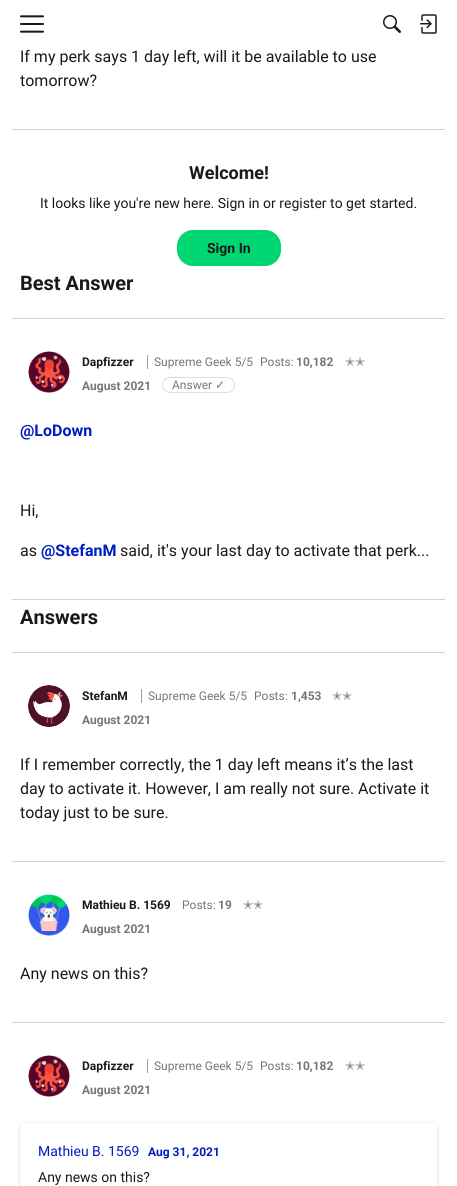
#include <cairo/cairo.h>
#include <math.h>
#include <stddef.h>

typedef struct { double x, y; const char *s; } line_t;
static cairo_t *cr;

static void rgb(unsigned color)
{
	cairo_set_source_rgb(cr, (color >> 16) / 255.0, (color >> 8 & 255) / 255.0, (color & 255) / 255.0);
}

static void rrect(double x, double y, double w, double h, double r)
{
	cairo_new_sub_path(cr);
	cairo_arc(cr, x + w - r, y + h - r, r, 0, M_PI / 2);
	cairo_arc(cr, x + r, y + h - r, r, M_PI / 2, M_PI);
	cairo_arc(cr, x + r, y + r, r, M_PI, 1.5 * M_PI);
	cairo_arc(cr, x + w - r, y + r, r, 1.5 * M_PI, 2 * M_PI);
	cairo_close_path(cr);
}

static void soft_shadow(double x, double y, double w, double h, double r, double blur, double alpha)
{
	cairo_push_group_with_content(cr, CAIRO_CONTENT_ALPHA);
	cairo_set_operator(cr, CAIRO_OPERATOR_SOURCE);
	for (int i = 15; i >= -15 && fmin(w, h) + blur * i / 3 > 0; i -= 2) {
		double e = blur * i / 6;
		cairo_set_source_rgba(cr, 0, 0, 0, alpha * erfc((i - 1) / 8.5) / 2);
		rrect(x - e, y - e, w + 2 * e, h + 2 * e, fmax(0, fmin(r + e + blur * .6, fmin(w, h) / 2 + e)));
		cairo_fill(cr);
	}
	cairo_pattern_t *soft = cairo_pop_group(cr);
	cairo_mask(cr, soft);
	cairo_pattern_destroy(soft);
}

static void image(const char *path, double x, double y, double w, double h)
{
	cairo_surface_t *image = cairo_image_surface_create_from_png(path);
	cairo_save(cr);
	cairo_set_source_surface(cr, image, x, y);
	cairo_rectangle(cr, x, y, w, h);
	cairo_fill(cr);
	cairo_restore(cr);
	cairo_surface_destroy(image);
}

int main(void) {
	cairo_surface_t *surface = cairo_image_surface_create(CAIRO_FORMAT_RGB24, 457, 1186);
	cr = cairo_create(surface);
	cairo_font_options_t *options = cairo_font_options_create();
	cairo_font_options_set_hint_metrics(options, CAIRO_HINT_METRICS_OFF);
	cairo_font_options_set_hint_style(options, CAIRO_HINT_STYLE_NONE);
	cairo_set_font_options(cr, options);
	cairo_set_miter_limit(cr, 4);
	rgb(0xffffff);
	cairo_paint(cr);
	image("img/1.png", 20, 15, 24, 18);
	image("img/2.png", 383, 15, 18, 18);
	image("img/3.png", 420, 14, 17, 20);
	rgb(0xd1d1d1);
	cairo_rectangle(cr, 12, 129, 433, 1);
	cairo_fill(cr);
	rgb(0x00d672);
	rrect(177.5, 230.5, 103, 35, 15.5);
	cairo_fill_preserve(cr);
	cairo_set_line_width(cr, 1);
	cairo_stroke(cr);
	rgb(0xd1d1d1);
	cairo_rectangle(cr, 12, 318, 433, 1);
	cairo_fill(cr);
	image("img/4.png", 28, 351, 42, 42);
	rgb(0xa49d9d);
	cairo_rectangle(cr, 147, 355, 1, 14);
	cairo_fill(cr);
	rrect(162.5, 377.5, 72, 15, 7.5);
	rgb(0xdddee0);
	cairo_stroke(cr);
	rgb(0xd1d1d1);
	cairo_rectangle(cr, 12, 599, 433, 1);
	cairo_fill(cr);
	cairo_rectangle(cr, 12, 652, 433, 1);
	cairo_fill(cr);
	image("img/5.png", 28, 685, 42, 42);
	rgb(0xa49d9d);
	cairo_rectangle(cr, 141, 689, 1, 14);
	cairo_fill(cr);
	rgb(0xd1d1d1);
	cairo_rectangle(cr, 12, 861, 433, 1);
	cairo_fill(cr);
	image("img/6.png", 28, 894, 42, 42);
	cairo_rectangle(cr, 12, 1022, 433, 1);
	cairo_fill(cr);
	image("img/4.png", 28, 1055, 42, 42);
	rgb(0xa49d9d);
	cairo_rectangle(cr, 147, 1059, 1, 14);
	cairo_fill(cr);
	rgb(0x000000);
	soft_shadow(20, 1124, 417, 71, 4, 1.5, 0.22);
	rgb(0xffffff);
	rrect(20, 1123, 417, 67, 4);
	cairo_fill(cr);
	cairo_select_font_face(cr, "Roboto", CAIRO_FONT_SLANT_NORMAL, CAIRO_FONT_WEIGHT_NORMAL);
	cairo_set_font_size(cr, 16);
	rgb(0x191919);
	cairo_move_to(cr, 20, 62);
	cairo_show_text(cr, "If my perk says 1 day left, will it be available to use");
	cairo_move_to(cr, 20, 86);
	cairo_show_text(cr, "tomorrow?");
	cairo_select_font_face(cr, "Roboto", CAIRO_FONT_SLANT_NORMAL, CAIRO_FONT_WEIGHT_BOLD);
	cairo_set_font_size(cr, 18);
	cairo_move_to(cr, 189, 179);
	cairo_show_text(cr, "Welcome!");
	cairo_select_font_face(cr, "Roboto", CAIRO_FONT_SLANT_NORMAL, CAIRO_FONT_WEIGHT_NORMAL);
	cairo_set_font_size(cr, 14);
	cairo_move_to(cr, 40, 208);
	cairo_show_text(cr, "It looks like you're new here. Sign in or register to get started.");
	cairo_select_font_face(cr, "Roboto", CAIRO_FONT_SLANT_NORMAL, CAIRO_FONT_WEIGHT_BOLD);
	cairo_move_to(cr, 207, 253);
	cairo_show_text(cr, "Sign In");
	cairo_set_font_size(cr, 20);
	cairo_move_to(cr, 20, 290);
	cairo_show_text(cr, "Best Answer");
	cairo_set_font_size(cr, 12);
	cairo_move_to(cr, 82, 366);
	cairo_show_text(cr, "Dapfizzer");
	cairo_select_font_face(cr, "Roboto", CAIRO_FONT_SLANT_NORMAL, CAIRO_FONT_WEIGHT_NORMAL);
	rgb(0x767676);
	cairo_move_to(cr, 154, 366);
	cairo_show_text(cr, "Supreme Geek 5/5");
	cairo_move_to(cr, 260, 366);
	cairo_show_text(cr, "Posts:");
	cairo_select_font_face(cr, "Roboto", CAIRO_FONT_SLANT_NORMAL, CAIRO_FONT_WEIGHT_BOLD);
	cairo_move_to(cr, 296, 366);
	cairo_show_text(cr, "10,182");
	cairo_select_font_face(cr, "DejaVu Sans", CAIRO_FONT_SLANT_NORMAL, CAIRO_FONT_WEIGHT_NORMAL);
	cairo_move_to(cr, 345, 366);
	cairo_show_text(cr, "✭✭");
	cairo_select_font_face(cr, "Roboto", CAIRO_FONT_SLANT_NORMAL, CAIRO_FONT_WEIGHT_BOLD);
	cairo_move_to(cr, 82, 390);
	cairo_show_text(cr, "August 2021");
	cairo_select_font_face(cr, "Roboto", CAIRO_FONT_SLANT_NORMAL, CAIRO_FONT_WEIGHT_NORMAL);
	cairo_move_to(cr, 172, 389);
	cairo_show_text(cr, "Answer");
	cairo_select_font_face(cr, "DejaVu Sans", CAIRO_FONT_SLANT_NORMAL, CAIRO_FONT_WEIGHT_NORMAL);
	cairo_move_to(cr, 215, 389);
	cairo_show_text(cr, "✓");
	cairo_select_font_face(cr, "Roboto", CAIRO_FONT_SLANT_NORMAL, CAIRO_FONT_WEIGHT_BOLD);
	cairo_set_font_size(cr, 16);
	rgb(0x001cc3);
	cairo_move_to(cr, 20, 436);
	cairo_show_text(cr, "@LoDown");
	cairo_select_font_face(cr, "Roboto", CAIRO_FONT_SLANT_NORMAL, CAIRO_FONT_WEIGHT_NORMAL);
	rgb(0x191919);
	cairo_move_to(cr, 20, 516);
	cairo_show_text(cr, "Hi,");
	cairo_move_to(cr, 20, 556);
	cairo_show_text(cr, "as");
	cairo_select_font_face(cr, "Roboto", CAIRO_FONT_SLANT_NORMAL, CAIRO_FONT_WEIGHT_BOLD);
	rgb(0x001cc3);
	cairo_move_to(cr, 41, 556);
	cairo_show_text(cr, "@StefanM");
	cairo_select_font_face(cr, "Roboto", CAIRO_FONT_SLANT_NORMAL, CAIRO_FONT_WEIGHT_NORMAL);
	rgb(0x191919);
	cairo_move_to(cr, 120, 556);
	cairo_show_text(cr, "said, it's your last day to activate that perk...");
	cairo_select_font_face(cr, "Roboto", CAIRO_FONT_SLANT_NORMAL, CAIRO_FONT_WEIGHT_BOLD);
	cairo_set_font_size(cr, 20);
	cairo_move_to(cr, 20, 624);
	cairo_show_text(cr, "Answers");
	cairo_set_font_size(cr, 12);
	cairo_move_to(cr, 82, 700);
	cairo_show_text(cr, "StefanM");
	cairo_select_font_face(cr, "Roboto", CAIRO_FONT_SLANT_NORMAL, CAIRO_FONT_WEIGHT_NORMAL);
	rgb(0x767676);
	cairo_move_to(cr, 148, 700);
	cairo_show_text(cr, "Supreme Geek 5/5");
	cairo_move_to(cr, 254, 700);
	cairo_show_text(cr, "Posts:");
	cairo_select_font_face(cr, "Roboto", CAIRO_FONT_SLANT_NORMAL, CAIRO_FONT_WEIGHT_BOLD);
	cairo_move_to(cr, 291, 700);
	cairo_show_text(cr, "1,453");
	cairo_select_font_face(cr, "DejaVu Sans", CAIRO_FONT_SLANT_NORMAL, CAIRO_FONT_WEIGHT_NORMAL);
	cairo_move_to(cr, 332, 700);
	cairo_show_text(cr, "✭✭");
	cairo_select_font_face(cr, "Roboto", CAIRO_FONT_SLANT_NORMAL, CAIRO_FONT_WEIGHT_BOLD);
	cairo_move_to(cr, 82, 724);
	cairo_show_text(cr, "August 2021");
	cairo_select_font_face(cr, "Roboto", CAIRO_FONT_SLANT_NORMAL, CAIRO_FONT_WEIGHT_NORMAL);
	cairo_set_font_size(cr, 16);
	rgb(0x191919);
	{
		static const line_t items[] = {
			{20, 770, "If I remember correctly, the 1 day left means it’s the last"},
			{20, 794, "day to activate it. However, I am really not sure. Activate it"},
			{20, 818, "today just to be sure."},
		};
		for (size_t i = 0; i < sizeof items / sizeof *items; i++) {
			cairo_move_to(cr, items[i].x, items[i].y);
			cairo_show_text(cr, items[i].s);
		}
	}
	cairo_select_font_face(cr, "Roboto", CAIRO_FONT_SLANT_NORMAL, CAIRO_FONT_WEIGHT_BOLD);
	cairo_set_font_size(cr, 12);
	cairo_move_to(cr, 82, 909);
	cairo_show_text(cr, "Mathieu B. 1569");
	cairo_select_font_face(cr, "Roboto", CAIRO_FONT_SLANT_NORMAL, CAIRO_FONT_WEIGHT_NORMAL);
	rgb(0x767676);
	cairo_move_to(cr, 182, 909);
	cairo_show_text(cr, "Posts:");
	cairo_select_font_face(cr, "Roboto", CAIRO_FONT_SLANT_NORMAL, CAIRO_FONT_WEIGHT_BOLD);
	cairo_move_to(cr, 218, 909);
	cairo_show_text(cr, "19");
	cairo_select_font_face(cr, "DejaVu Sans", CAIRO_FONT_SLANT_NORMAL, CAIRO_FONT_WEIGHT_NORMAL);
	cairo_move_to(cr, 243, 909);
	cairo_show_text(cr, "✭✭");
	cairo_select_font_face(cr, "Roboto", CAIRO_FONT_SLANT_NORMAL, CAIRO_FONT_WEIGHT_BOLD);
	cairo_move_to(cr, 82, 933);
	cairo_show_text(cr, "August 2021");
	cairo_select_font_face(cr, "Roboto", CAIRO_FONT_SLANT_NORMAL, CAIRO_FONT_WEIGHT_NORMAL);
	cairo_set_font_size(cr, 16);
	rgb(0x191919);
	cairo_move_to(cr, 20, 979);
	cairo_show_text(cr, "Any news on this?");
	cairo_select_font_face(cr, "Roboto", CAIRO_FONT_SLANT_NORMAL, CAIRO_FONT_WEIGHT_BOLD);
	cairo_set_font_size(cr, 12);
	cairo_move_to(cr, 82, 1070);
	cairo_show_text(cr, "Dapfizzer");
	cairo_select_font_face(cr, "Roboto", CAIRO_FONT_SLANT_NORMAL, CAIRO_FONT_WEIGHT_NORMAL);
	rgb(0x767676);
	cairo_move_to(cr, 154, 1070);
	cairo_show_text(cr, "Supreme Geek 5/5");
	cairo_move_to(cr, 260, 1070);
	cairo_show_text(cr, "Posts:");
	cairo_select_font_face(cr, "Roboto", CAIRO_FONT_SLANT_NORMAL, CAIRO_FONT_WEIGHT_BOLD);
	cairo_move_to(cr, 296, 1070);
	cairo_show_text(cr, "10,182");
	cairo_select_font_face(cr, "DejaVu Sans", CAIRO_FONT_SLANT_NORMAL, CAIRO_FONT_WEIGHT_NORMAL);
	cairo_move_to(cr, 345, 1070);
	cairo_show_text(cr, "✭✭");
	cairo_select_font_face(cr, "Roboto", CAIRO_FONT_SLANT_NORMAL, CAIRO_FONT_WEIGHT_BOLD);
	cairo_move_to(cr, 82, 1094);
	cairo_show_text(cr, "August 2021");
	cairo_select_font_face(cr, "Roboto", CAIRO_FONT_SLANT_NORMAL, CAIRO_FONT_WEIGHT_NORMAL);
	cairo_set_font_size(cr, 14);
	rgb(0x001cc3);
	cairo_move_to(cr, 38, 1156);
	cairo_show_text(cr, "Mathieu B. 1569");
	cairo_select_font_face(cr, "Roboto", CAIRO_FONT_SLANT_NORMAL, CAIRO_FONT_WEIGHT_BOLD);
	cairo_set_font_size(cr, 12);
	cairo_move_to(cr, 148, 1156);
	cairo_show_text(cr, "Aug 31, 2021");
	cairo_select_font_face(cr, "Roboto", CAIRO_FONT_SLANT_NORMAL, CAIRO_FONT_WEIGHT_NORMAL);
	cairo_set_font_size(cr, 14);
	rgb(0x191919);
	cairo_move_to(cr, 38, 1182);
	cairo_show_text(cr, "Any news on this?");
	cairo_surface_write_to_png(surface, "page.png");
	cairo_font_options_destroy(options);
	cairo_destroy(cr);
	cairo_surface_destroy(surface);
	return 0;
}
